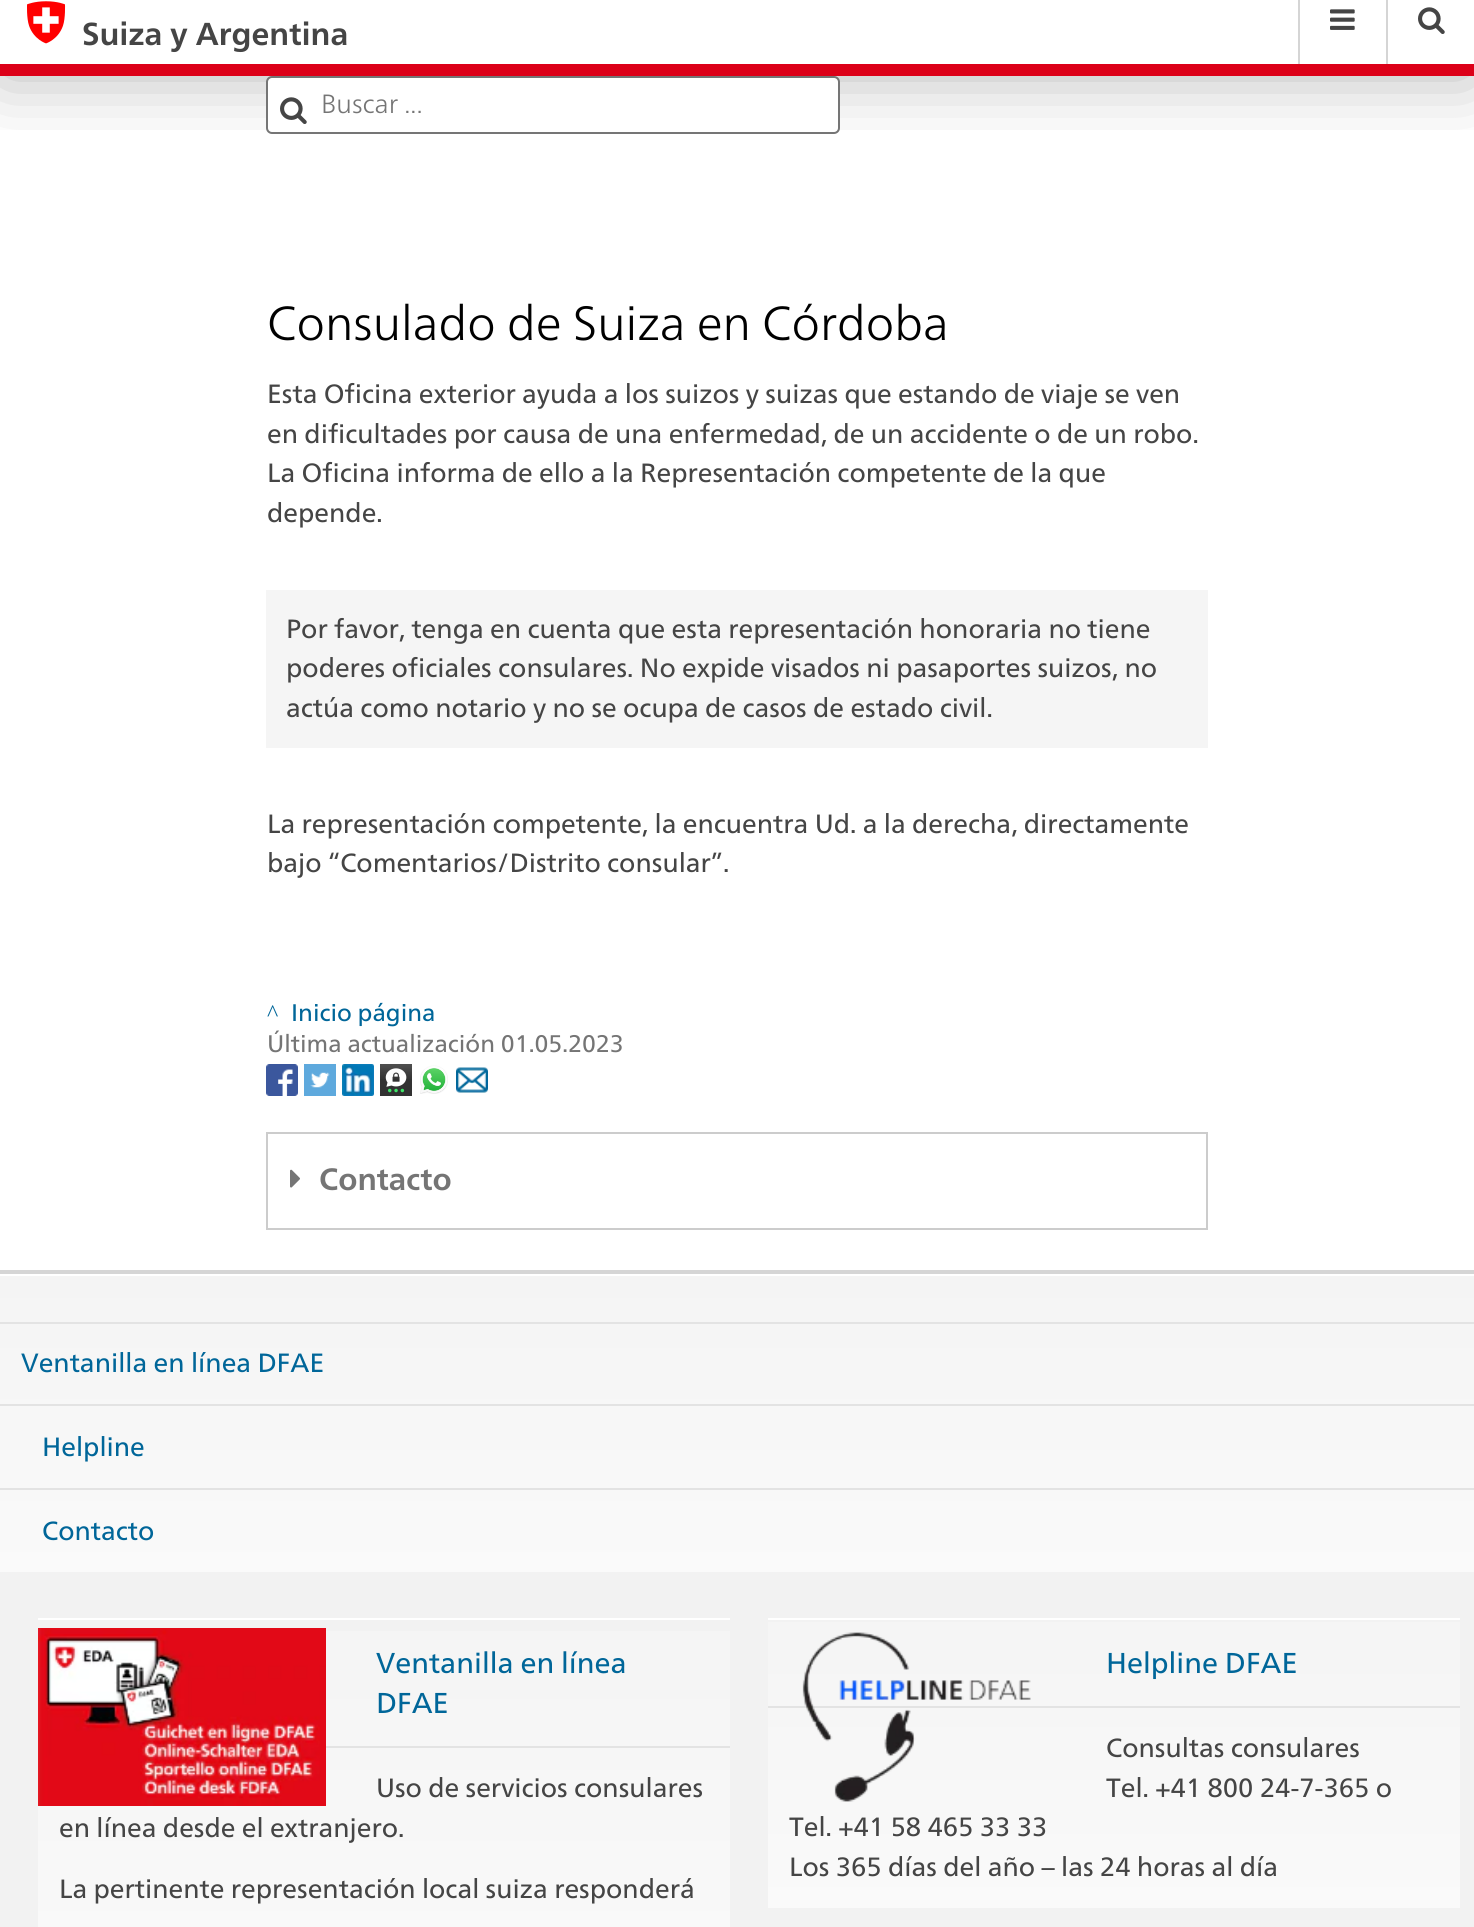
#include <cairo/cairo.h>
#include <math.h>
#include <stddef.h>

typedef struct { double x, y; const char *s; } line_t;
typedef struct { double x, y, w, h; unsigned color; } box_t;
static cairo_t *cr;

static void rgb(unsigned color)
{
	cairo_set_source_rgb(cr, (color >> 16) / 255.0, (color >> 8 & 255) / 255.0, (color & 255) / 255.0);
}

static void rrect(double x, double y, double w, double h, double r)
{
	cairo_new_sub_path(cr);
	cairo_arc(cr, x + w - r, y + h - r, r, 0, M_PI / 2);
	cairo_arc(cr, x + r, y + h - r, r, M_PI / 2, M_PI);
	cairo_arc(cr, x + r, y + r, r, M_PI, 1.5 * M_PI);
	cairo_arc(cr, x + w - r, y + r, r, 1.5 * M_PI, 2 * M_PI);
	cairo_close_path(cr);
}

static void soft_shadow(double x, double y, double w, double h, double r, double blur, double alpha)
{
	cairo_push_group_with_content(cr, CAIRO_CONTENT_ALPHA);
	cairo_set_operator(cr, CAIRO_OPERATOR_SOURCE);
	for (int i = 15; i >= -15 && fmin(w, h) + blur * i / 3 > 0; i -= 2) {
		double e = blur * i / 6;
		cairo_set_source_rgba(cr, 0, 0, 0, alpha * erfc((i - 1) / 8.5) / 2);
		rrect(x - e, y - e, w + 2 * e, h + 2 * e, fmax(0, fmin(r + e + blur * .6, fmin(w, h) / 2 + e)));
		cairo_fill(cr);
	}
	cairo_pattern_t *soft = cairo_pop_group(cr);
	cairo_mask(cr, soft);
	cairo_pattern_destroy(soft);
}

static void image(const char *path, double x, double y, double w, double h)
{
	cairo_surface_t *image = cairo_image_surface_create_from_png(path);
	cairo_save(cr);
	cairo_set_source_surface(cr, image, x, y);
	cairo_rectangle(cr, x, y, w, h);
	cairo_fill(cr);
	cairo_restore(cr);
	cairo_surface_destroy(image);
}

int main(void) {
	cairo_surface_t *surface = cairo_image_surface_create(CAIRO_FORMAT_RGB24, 1474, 1927);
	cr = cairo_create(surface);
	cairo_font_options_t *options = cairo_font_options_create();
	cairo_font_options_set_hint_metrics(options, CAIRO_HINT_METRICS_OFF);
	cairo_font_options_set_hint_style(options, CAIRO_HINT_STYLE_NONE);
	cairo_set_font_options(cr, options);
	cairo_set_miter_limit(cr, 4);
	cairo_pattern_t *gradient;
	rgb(0xffffff);
	cairo_paint(cr);
	cairo_save(cr);
	cairo_rectangle(cr, 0, 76, 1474, 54);
	cairo_clip(cr);
	rgb(0x000000);
	soft_shadow(0, -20, 1474, 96, 0, 36, 0.3);
	cairo_restore(cr);
	rgb(0xdc0018);
	cairo_rectangle(cr, 0, 64, 1474, 12);
	cairo_fill(cr);
	image("img/1.png", 27, 1, 39, 43);
	rgb(0xd5d5d5);
	cairo_rectangle(cr, 1298, 0, 2, 64);
	cairo_fill(cr);
	image("img/2.png", 1330, 9, 25, 21);
	cairo_rectangle(cr, 1386, 0, 2, 64);
	cairo_fill(cr);
	image("img/3.png", 1418, 7, 27, 27);
	rgb(0xffffff);
	rrect(267, 77, 572, 56, 5);
	cairo_fill_preserve(cr);
	rgb(0x757575);
	cairo_stroke(cr);
	image("img/3.png", 280, 97, 27, 27);
	rgb(0xf5f5f5);
	cairo_rectangle(cr, 266, 590, 942, 158);
	cairo_fill(cr);
	image("img/4.png", 266, 1064, 32, 32);
	image("img/5.png", 304, 1064, 32, 32);
	image("img/6.png", 342, 1064, 32, 32);
	image("img/7.png", 380, 1064, 32, 32);
	image("img/8.png", 420, 1065, 28, 29);
	image("img/9.png", 456, 1067, 32, 26);
	{
		static const box_t items[] = {
			{266, 1228, 942, 2, 0xcccccc},
			{266, 1132, 942, 2, 0xcccccc},
			{1206, 1132, 2, 96, 0xcccccc},
			{266, 1132, 2, 96, 0xcccccc},
		};
		for (size_t i = 0; i < sizeof items / sizeof *items; i++) {
			rgb(items[i].color);
			cairo_rectangle(cr, items[i].x, items[i].y, items[i].w, items[i].h);
			cairo_fill(cr);
		}
	}
	image("img/10.png", 290, 1169, 10, 19);
	rgb(0xf2f2f2);
	cairo_rectangle(cr, 0, 1572, 1474, 355);
	cairo_fill(cr);
	rgb(0xd5d5d5);
	cairo_rectangle(cr, 0, 1270, 1474, 4);
	cairo_fill(cr);
	gradient = cairo_pattern_create_linear(737, 1274, 737, 1572);
	cairo_pattern_add_color_stop_rgba(gradient, 0, 0.957, 0.957, 0.957, 1);
	cairo_pattern_add_color_stop_rgba(gradient, 1, 0.98, 0.98, 0.98, 1);
	cairo_set_source(cr, gradient);
	cairo_pattern_destroy(gradient);
	cairo_rectangle(cr, 0, 1276, 1474, 296);
	cairo_fill(cr);
	{
		static const box_t items[] = {
			{0, 1322, 1474, 2, 0xe3e3e3},
			{0, 1404, 1474, 2, 0xe3e3e3},
			{0, 1488, 1474, 2, 0xe3e3e3},
		};
		for (size_t i = 0; i < sizeof items / sizeof *items; i++) {
			rgb(items[i].color);
			cairo_rectangle(cr, items[i].x, items[i].y, items[i].w, items[i].h);
			cairo_fill(cr);
		}
	}
	gradient = cairo_pattern_create_linear(384, 1596, 384, 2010);
	cairo_pattern_add_color_stop_rgba(gradient, 0, 0.957, 0.957, 0.957, 1);
	cairo_pattern_add_color_stop_rgba(gradient, 1, 0.98, 0.98, 0.98, 1);
	cairo_set_source(cr, gradient);
	cairo_pattern_destroy(gradient);
	cairo_rectangle(cr, 38, 1631, 692, 296);
	cairo_fill(cr);
	image("img/11.png", 38, 1628, 288, 178);
	rgb(0xffffff);
	cairo_rectangle(cr, 38, 1618, 692, 2);
	cairo_fill(cr);
	rgb(0xe3e3e3);
	cairo_rectangle(cr, 326, 1746, 404, 2);
	cairo_fill(cr);
	gradient = cairo_pattern_create_linear(1114, 1596, 1114, 1908);
	cairo_pattern_add_color_stop_rgba(gradient, 0, 0.957, 0.957, 0.957, 1);
	cairo_pattern_add_color_stop_rgba(gradient, 1, 0.98, 0.98, 0.98, 1);
	cairo_set_source(cr, gradient);
	cairo_pattern_destroy(gradient);
	cairo_rectangle(cr, 768, 1622, 692, 286);
	cairo_fill(cr);
	rgb(0xe3e3e3);
	cairo_rectangle(cr, 768, 1706, 692, 2);
	cairo_fill(cr);
	image("img/12.png", 802, 1632, 229, 170);
	rgb(0xffffff);
	cairo_rectangle(cr, 768, 1618, 692, 2);
	cairo_fill(cr);
	cairo_select_font_face(cr, "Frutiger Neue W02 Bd", CAIRO_FONT_SLANT_NORMAL, CAIRO_FONT_WEIGHT_BOLD);
	cairo_set_font_size(cr, 31.75);
	rgb(0x454545);
	cairo_move_to(cr, 82, 45);
	cairo_show_text(cr, "Suiza y Argentina");
	cairo_select_font_face(cr, "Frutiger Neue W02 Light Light", CAIRO_FONT_SLANT_NORMAL, CAIRO_FONT_WEIGHT_NORMAL);
	cairo_set_font_size(cr, 26.4);
	rgb(0x757575);
	cairo_move_to(cr, 321, 113);
	cairo_show_text(cr, "Buscar ...");
	cairo_set_font_size(cr, 48);
	rgb(0x000000);
	cairo_move_to(cr, 267, 340);
	cairo_show_text(cr, "Consulado de Suiza en Córdoba");
	cairo_select_font_face(cr, "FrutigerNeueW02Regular", CAIRO_FONT_SLANT_NORMAL, CAIRO_FONT_WEIGHT_NORMAL);
	cairo_set_font_size(cr, 26.4);
	rgb(0x454545);
	{
		static const line_t items[] = {
			{267, 403, "Esta Oficina exterior ayuda a los suizos y suizas que estando de viaje se ven"},
			{267, 443, "en dificultades por causa de una enfermedad, de un accidente o de un robo."},
			{267, 482, "La Oficina informa de ello a la Representación competente de la que"},
			{267, 522, "depende."},
			{286, 638, "Por favor, tenga en cuenta que esta representación honoraria no tiene"},
			{286, 677, "poderes oficiales consulares. No expide visados ni pasaportes suizos, no"},
			{286, 717, "actúa como notario y no se ocupa de casos de estado civil."},
			{267, 833, "La representación competente, la encuentra Ud. a la derecha, directamente"},
			{267, 872, "bajo “Comentarios/Distrito consular”."},
		};
		for (size_t i = 0; i < sizeof items / sizeof *items; i++) {
			cairo_move_to(cr, items[i].x, items[i].y);
			cairo_show_text(cr, items[i].s);
		}
	}
	cairo_select_font_face(cr, "Liberation Serif", CAIRO_FONT_SLANT_NORMAL, CAIRO_FONT_WEIGHT_NORMAL);
	cairo_set_font_size(cr, 24);
	rgb(0x006699);
	cairo_move_to(cr, 267, 1021);
	cairo_show_text(cr, "^");
	cairo_select_font_face(cr, "FrutigerNeueW02Regular", CAIRO_FONT_SLANT_NORMAL, CAIRO_FONT_WEIGHT_NORMAL);
	cairo_move_to(cr, 291, 1021);
	cairo_show_text(cr, "Inicio página");
	rgb(0x757575);
	cairo_move_to(cr, 267, 1052);
	cairo_show_text(cr, "Última actualización 01.05.2023");
	cairo_select_font_face(cr, "Frutiger Neue W02 Bd", CAIRO_FONT_SLANT_NORMAL, CAIRO_FONT_WEIGHT_BOLD);
	cairo_set_font_size(cr, 31);
	cairo_move_to(cr, 319, 1190);
	cairo_show_text(cr, "Contacto");
	cairo_select_font_face(cr, "FrutigerNeueW02Regular", CAIRO_FONT_SLANT_NORMAL, CAIRO_FONT_WEIGHT_NORMAL);
	cairo_set_font_size(cr, 26.4);
	rgb(0x006699);
	{
		static const line_t items[] = {
			{21, 1372, "Ventanilla en línea DFAE"},
			{42, 1456, "Helpline"},
			{42, 1540, "Contacto"},
		};
		for (size_t i = 0; i < sizeof items / sizeof *items; i++) {
			cairo_move_to(cr, items[i].x, items[i].y);
			cairo_show_text(cr, items[i].s);
		}
	}
	cairo_set_font_size(cr, 28.75);
	cairo_move_to(cr, 376, 1673);
	cairo_show_text(cr, "Ventanilla en línea");
	cairo_move_to(cr, 376, 1713);
	cairo_show_text(cr, "DFAE");
	cairo_set_font_size(cr, 26.4);
	rgb(0x454545);
	{
		static const line_t items[] = {
			{376, 1797, "Uso de servicios consulares"},
			{59, 1837, "en línea desde el extranjero."},
			{59, 1898, "La pertinente representación local suiza responderá"},
		};
		for (size_t i = 0; i < sizeof items / sizeof *items; i++) {
			cairo_move_to(cr, items[i].x, items[i].y);
			cairo_show_text(cr, items[i].s);
		}
	}
	cairo_set_font_size(cr, 28.75);
	rgb(0x006699);
	cairo_move_to(cr, 1106, 1673);
	cairo_show_text(cr, "Helpline DFAE");
	cairo_set_font_size(cr, 26.4);
	rgb(0x454545);
	{
		static const line_t items[] = {
			{1106, 1757, "Consultas consulares"},
			{1106, 1797, "Tel. +41 800 24-7-365 o"},
			{789, 1836, "Tel. +41 58 465 33 33"},
			{789, 1876, "Los 365 días del año – las 24 horas al día"},
		};
		for (size_t i = 0; i < sizeof items / sizeof *items; i++) {
			cairo_move_to(cr, items[i].x, items[i].y);
			cairo_show_text(cr, items[i].s);
		}
	}
	cairo_surface_write_to_png(surface, "page.png");
	cairo_font_options_destroy(options);
	cairo_destroy(cr);
	cairo_surface_destroy(surface);
	return 0;
}
